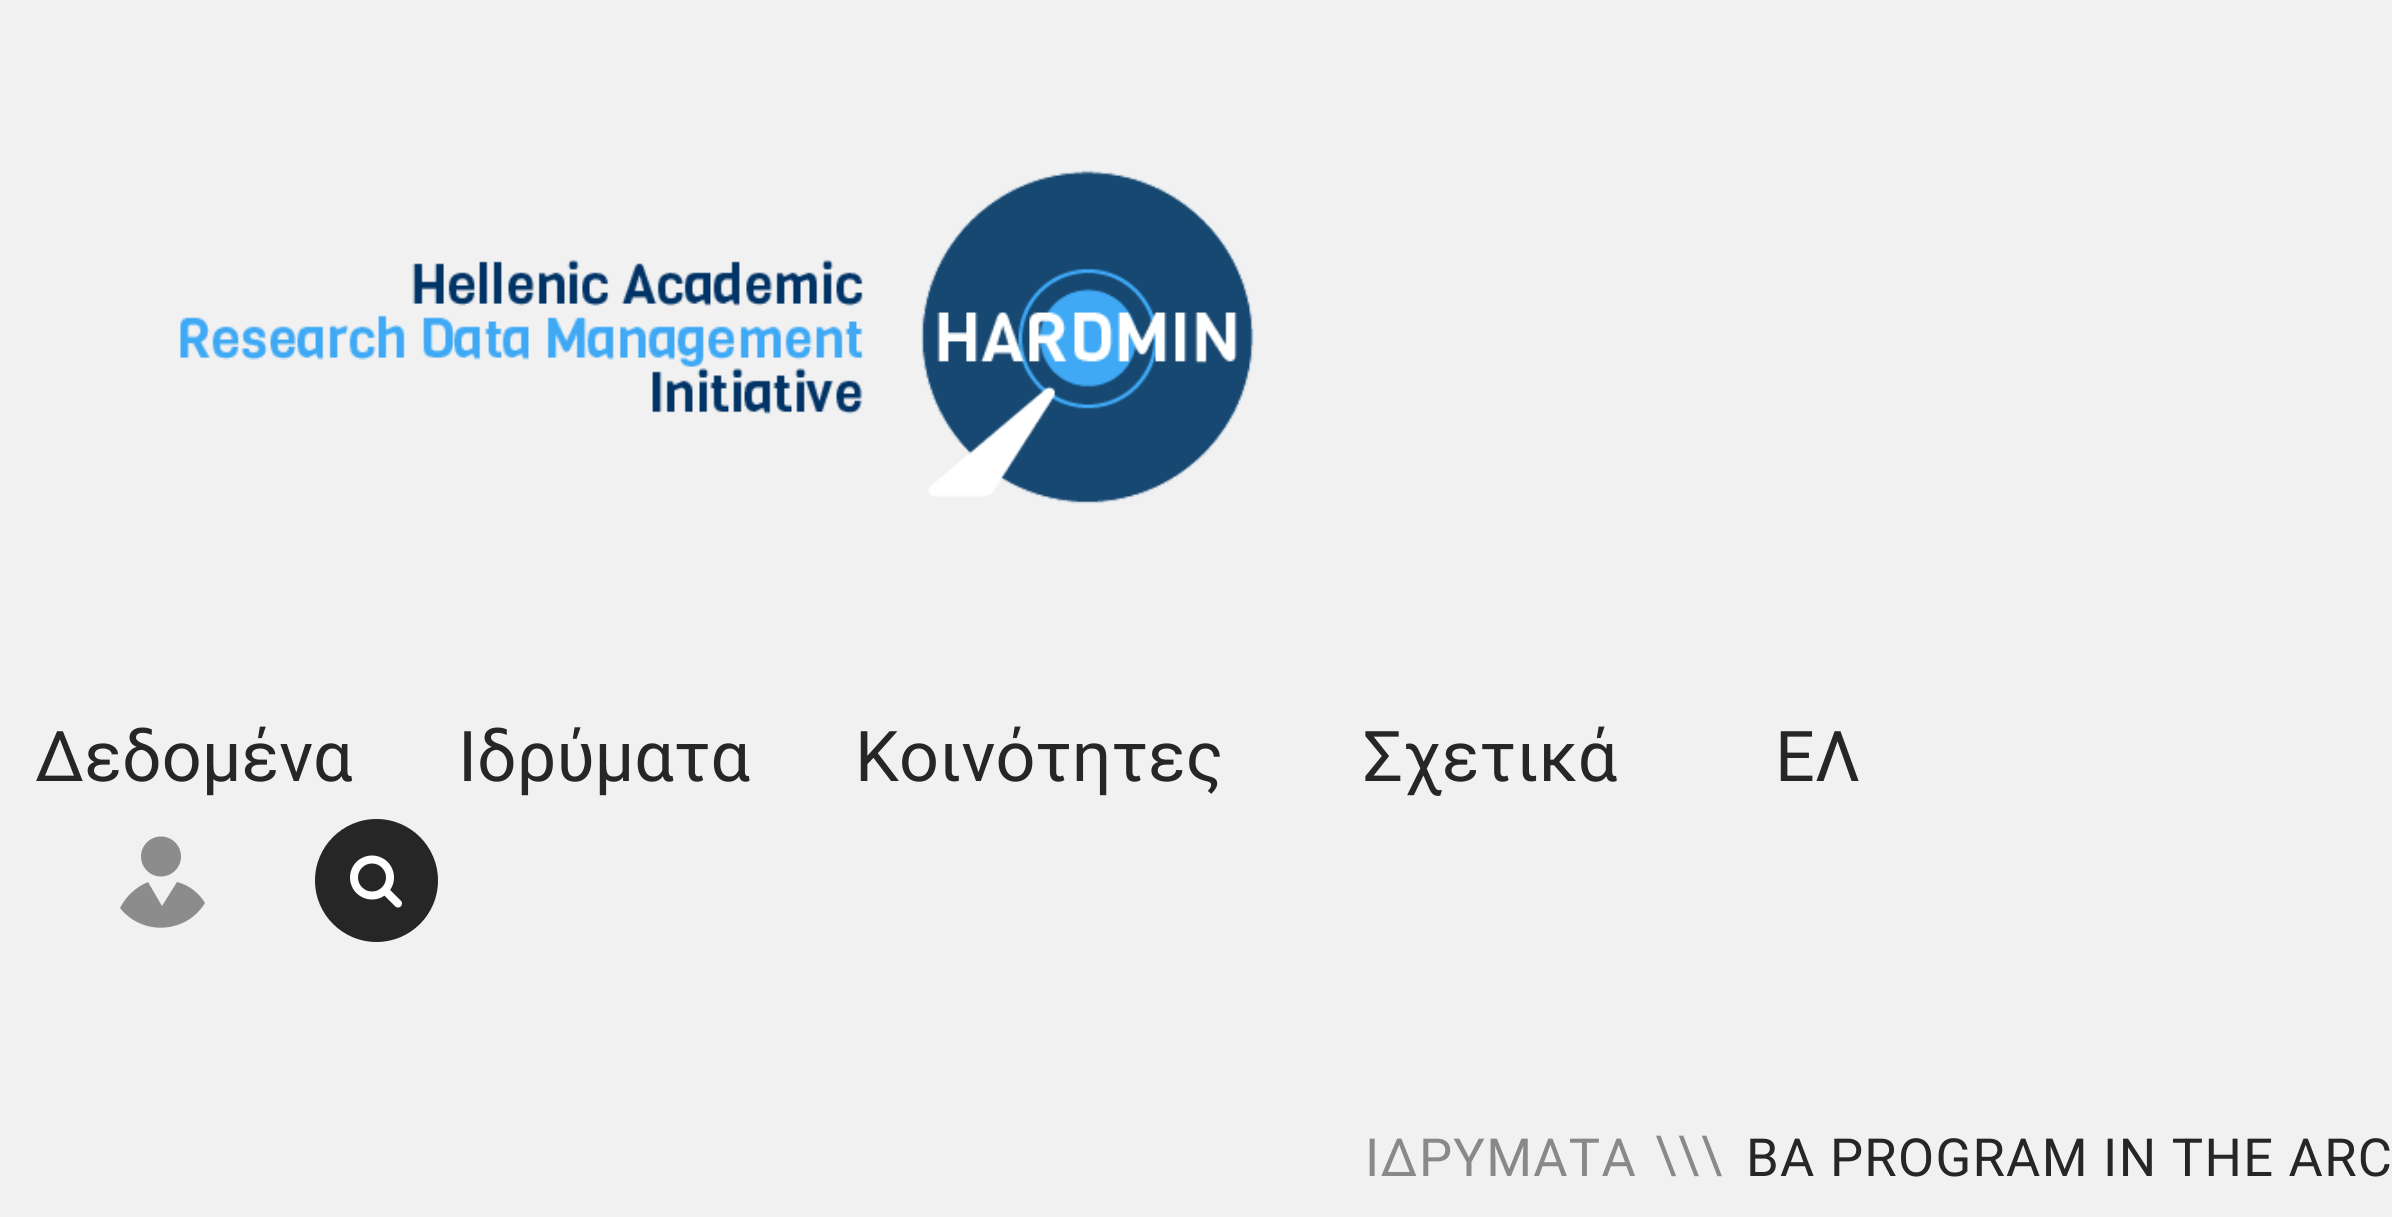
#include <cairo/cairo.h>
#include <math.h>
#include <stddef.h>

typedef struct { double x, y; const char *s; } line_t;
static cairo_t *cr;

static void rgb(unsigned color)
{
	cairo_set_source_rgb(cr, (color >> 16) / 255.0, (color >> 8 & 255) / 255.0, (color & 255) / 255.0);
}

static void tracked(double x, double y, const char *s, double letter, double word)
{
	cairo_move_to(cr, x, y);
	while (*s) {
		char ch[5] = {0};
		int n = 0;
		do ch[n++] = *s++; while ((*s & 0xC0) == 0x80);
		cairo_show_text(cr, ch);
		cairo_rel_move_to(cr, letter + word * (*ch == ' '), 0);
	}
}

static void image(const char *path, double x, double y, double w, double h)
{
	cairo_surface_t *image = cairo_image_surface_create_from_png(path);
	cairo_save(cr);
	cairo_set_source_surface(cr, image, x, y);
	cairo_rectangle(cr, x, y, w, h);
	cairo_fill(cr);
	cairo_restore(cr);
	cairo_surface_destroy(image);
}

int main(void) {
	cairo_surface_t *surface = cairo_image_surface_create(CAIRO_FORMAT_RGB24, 2392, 1217);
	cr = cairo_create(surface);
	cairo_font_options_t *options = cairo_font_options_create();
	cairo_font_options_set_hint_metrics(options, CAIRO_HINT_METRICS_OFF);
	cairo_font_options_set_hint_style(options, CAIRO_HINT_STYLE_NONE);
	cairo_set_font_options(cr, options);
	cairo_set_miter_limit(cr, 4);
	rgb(0xf1f1f1);
	cairo_paint(cr);
	image("img/1.png", 180, 170, 1074, 334);
	rgb(0x8c8c8c);
	cairo_arc(cr, 161, 856.5, 20, 0, 2 * M_PI);
	cairo_fill(cr);
	cairo_new_path(cr);
	cairo_move_to(cr, 205, 903);
	cairo_curve_to(cr, 186, 934, 142, 936, 120, 908);
	cairo_curve_to(cr, 126, 896, 136, 887, 148, 882);
	cairo_line_to(cr, 162, 906);
	cairo_line_to(cr, 177, 882);
	cairo_curve_to(cr, 189, 885, 199, 893, 205, 903);
	cairo_close_path(cr);
	cairo_fill(cr);
	rgb(0x262626);
	cairo_arc(cr, 376.5, 880.5, 61.5, 0, 2 * M_PI);
	cairo_fill(cr);
	image("img/2.png", 350, 855, 52, 53);
	cairo_select_font_face(cr, "Roboto", CAIRO_FONT_SLANT_NORMAL, CAIRO_FONT_WEIGHT_NORMAL);
	cairo_set_font_size(cr, 70);
	{
		static const line_t items[] = {
			{35, 781, "Δεδομένα"},
			{458, 781, "Ιδρύματα"},
			{855, 781, "Κοινότητες"},
			{1363, 781, "Σχετικά"},
			{1775, 781, "ΕΛ"},
		};
		for (size_t i = 0; i < sizeof items / sizeof *items; i++) {
			cairo_move_to(cr, items[i].x, items[i].y);
			cairo_show_text(cr, items[i].s);
		}
	}
	cairo_set_font_size(cr, 52.5);
	rgb(0x898989);
	tracked(1365, 1176, "ΙΔΡΥΜΑΤΑ", 1.3, 0);
	tracked(1655, 1173, "\\\\\\", 1.3, 0);
	rgb(0x262626);
	tracked(1746, 1176, "BA PROGRAM IN THE ARC", 1.3, 0);
	cairo_surface_write_to_png(surface, "page.png");
	cairo_font_options_destroy(options);
	cairo_destroy(cr);
	cairo_surface_destroy(surface);
	return 0;
}
